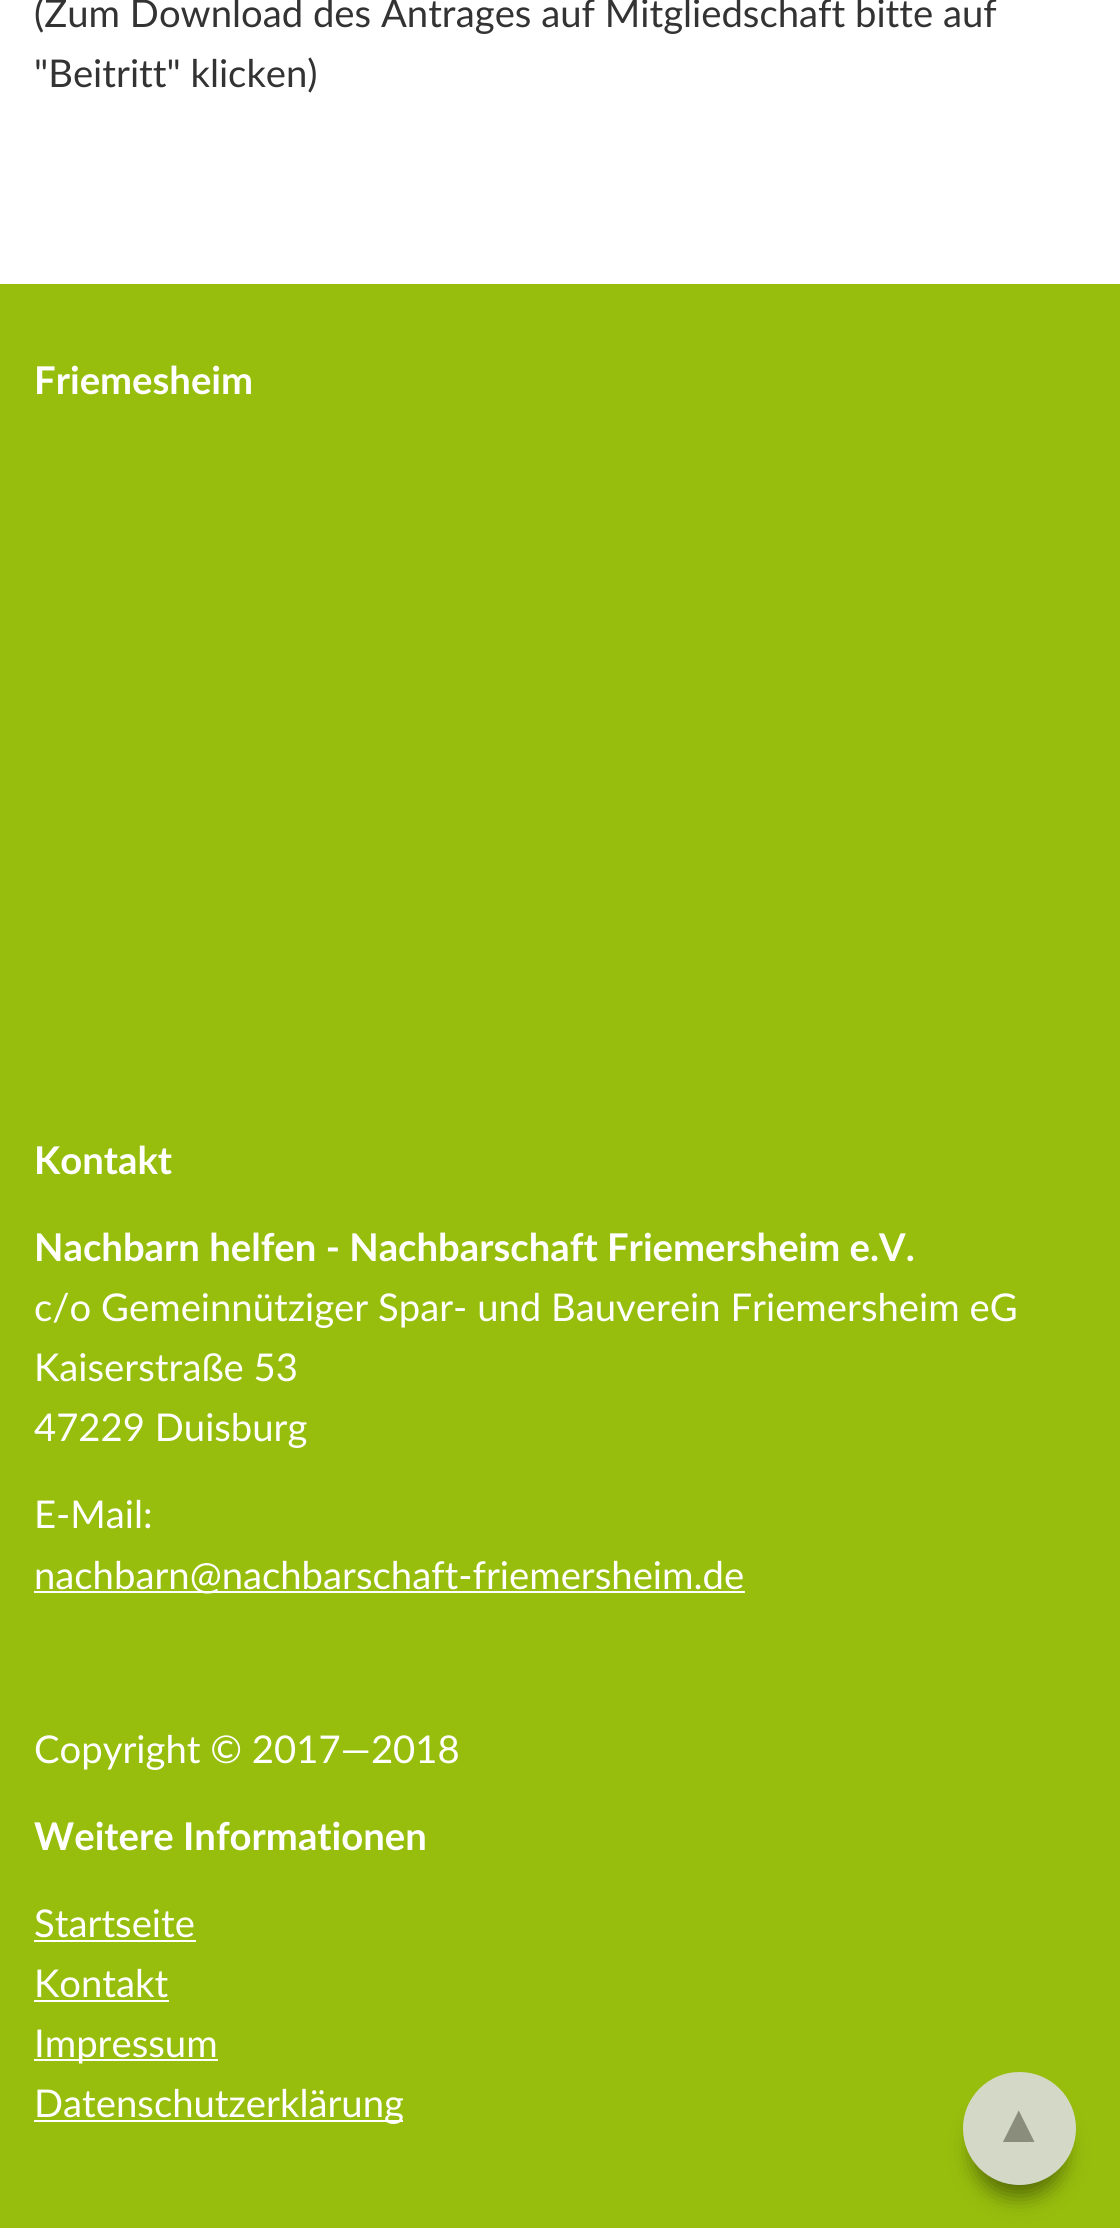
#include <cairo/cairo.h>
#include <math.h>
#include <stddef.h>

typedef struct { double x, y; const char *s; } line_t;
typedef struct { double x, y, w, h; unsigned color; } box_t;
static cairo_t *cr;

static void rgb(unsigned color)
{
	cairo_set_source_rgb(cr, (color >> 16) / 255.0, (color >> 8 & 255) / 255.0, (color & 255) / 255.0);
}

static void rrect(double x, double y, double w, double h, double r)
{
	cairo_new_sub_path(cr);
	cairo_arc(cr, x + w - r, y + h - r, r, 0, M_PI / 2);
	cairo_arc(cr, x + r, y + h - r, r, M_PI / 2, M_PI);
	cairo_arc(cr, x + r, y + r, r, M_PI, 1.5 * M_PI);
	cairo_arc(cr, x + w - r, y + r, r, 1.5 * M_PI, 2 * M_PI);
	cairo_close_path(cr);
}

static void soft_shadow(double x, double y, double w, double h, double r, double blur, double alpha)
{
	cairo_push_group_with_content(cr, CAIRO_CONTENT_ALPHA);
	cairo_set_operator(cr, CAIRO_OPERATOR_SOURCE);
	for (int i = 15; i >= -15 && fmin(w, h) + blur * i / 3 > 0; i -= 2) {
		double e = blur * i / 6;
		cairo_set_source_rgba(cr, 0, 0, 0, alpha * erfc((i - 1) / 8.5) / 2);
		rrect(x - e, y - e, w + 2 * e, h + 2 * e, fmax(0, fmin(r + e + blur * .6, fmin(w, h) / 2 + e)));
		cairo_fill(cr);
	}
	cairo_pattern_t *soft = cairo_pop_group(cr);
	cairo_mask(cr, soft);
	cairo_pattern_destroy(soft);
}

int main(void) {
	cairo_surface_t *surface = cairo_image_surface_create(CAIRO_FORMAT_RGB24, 1120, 2228);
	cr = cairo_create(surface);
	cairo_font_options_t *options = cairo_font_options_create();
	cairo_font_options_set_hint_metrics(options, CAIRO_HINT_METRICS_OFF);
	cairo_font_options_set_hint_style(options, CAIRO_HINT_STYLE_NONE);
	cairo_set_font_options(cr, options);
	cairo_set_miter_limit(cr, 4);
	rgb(0xffffff);
	cairo_paint(cr);
	{
		static const box_t items[] = {
			{0, 284, 1120, 1944, 0x97be0d},
			{34, 1591, 711, 2, 0xffffff},
			{34, 1940, 162, 2, 0xffffff},
			{34, 2000, 135, 2, 0xffffff},
			{34, 2059, 184, 2, 0xffffff},
			{34, 2120, 369, 2, 0xffffff},
		};
		for (size_t i = 0; i < sizeof items / sizeof *items; i++) {
			rgb(items[i].color);
			cairo_rectangle(cr, items[i].x, items[i].y, items[i].w, items[i].h);
			cairo_fill(cr);
		}
	}
	rgb(0x0f1301);
	soft_shadow(974, 2106, 90, 90, 45, 11, 0.5);
	rgb(0xd4d8c6);
	cairo_arc(cr, 1019.5, 2128.5, 56.5, 0, 2 * M_PI);
	cairo_fill(cr);
	cairo_select_font_face(cr, "Lato", CAIRO_FONT_SLANT_NORMAL, CAIRO_FONT_WEIGHT_NORMAL);
	cairo_set_font_size(cr, 38.25);
	rgb(0x333333);
	cairo_move_to(cr, 34, 27);
	cairo_show_text(cr, "(Zum Download des Antrages auf Mitgliedschaft bitte auf");
	cairo_move_to(cr, 34, 87);
	cairo_show_text(cr, "\"Beitritt\" klicken)");
	cairo_select_font_face(cr, "Lato", CAIRO_FONT_SLANT_NORMAL, CAIRO_FONT_WEIGHT_BOLD);
	rgb(0xffffff);
	{
		static const line_t items[] = {
			{34, 394, "Friemesheim"},
			{34, 1174, "Kontakt"},
			{34, 1261, "Nachbarn helfen - Nachbarschaft Friemersheim e.V."},
		};
		for (size_t i = 0; i < sizeof items / sizeof *items; i++) {
			cairo_move_to(cr, items[i].x, items[i].y);
			cairo_show_text(cr, items[i].s);
		}
	}
	cairo_select_font_face(cr, "Lato", CAIRO_FONT_SLANT_NORMAL, CAIRO_FONT_WEIGHT_NORMAL);
	{
		static const line_t items[] = {
			{34, 1321, "c/o Gemeinnütziger Spar- und Bauverein Friemersheim eG"},
			{34, 1381, "Kaiserstraße 53"},
			{34, 1441, "47229 Duisburg"},
			{34, 1528, "E-Mail:"},
			{34, 1589, "nachbarn@nachbarschaft-friemersheim.de"},
			{34, 1763, "Copyright © 2017—2018"},
		};
		for (size_t i = 0; i < sizeof items / sizeof *items; i++) {
			cairo_move_to(cr, items[i].x, items[i].y);
			cairo_show_text(cr, items[i].s);
		}
	}
	cairo_select_font_face(cr, "Lato", CAIRO_FONT_SLANT_NORMAL, CAIRO_FONT_WEIGHT_BOLD);
	cairo_move_to(cr, 34, 1850);
	cairo_show_text(cr, "Weitere Informationen");
	cairo_select_font_face(cr, "Lato", CAIRO_FONT_SLANT_NORMAL, CAIRO_FONT_WEIGHT_NORMAL);
	{
		static const line_t items[] = {
			{34, 1937, "Startseite"},
			{34, 1997, "Kontakt"},
			{34, 2057, "Impressum"},
			{34, 2117, "Datenschutzerklärung"},
		};
		for (size_t i = 0; i < sizeof items / sizeof *items; i++) {
			cairo_move_to(cr, items[i].x, items[i].y);
			cairo_show_text(cr, items[i].s);
		}
	}
	cairo_select_font_face(cr, "Liberation Sans", CAIRO_FONT_SLANT_NORMAL, CAIRO_FONT_WEIGHT_NORMAL);
	cairo_set_font_size(cr, 54);
	rgb(0x8a8d7c);
	cairo_move_to(cr, 992, 2142);
	cairo_show_text(cr, "▲");
	cairo_surface_write_to_png(surface, "page.png");
	cairo_font_options_destroy(options);
	cairo_destroy(cr);
	cairo_surface_destroy(surface);
	return 0;
}
